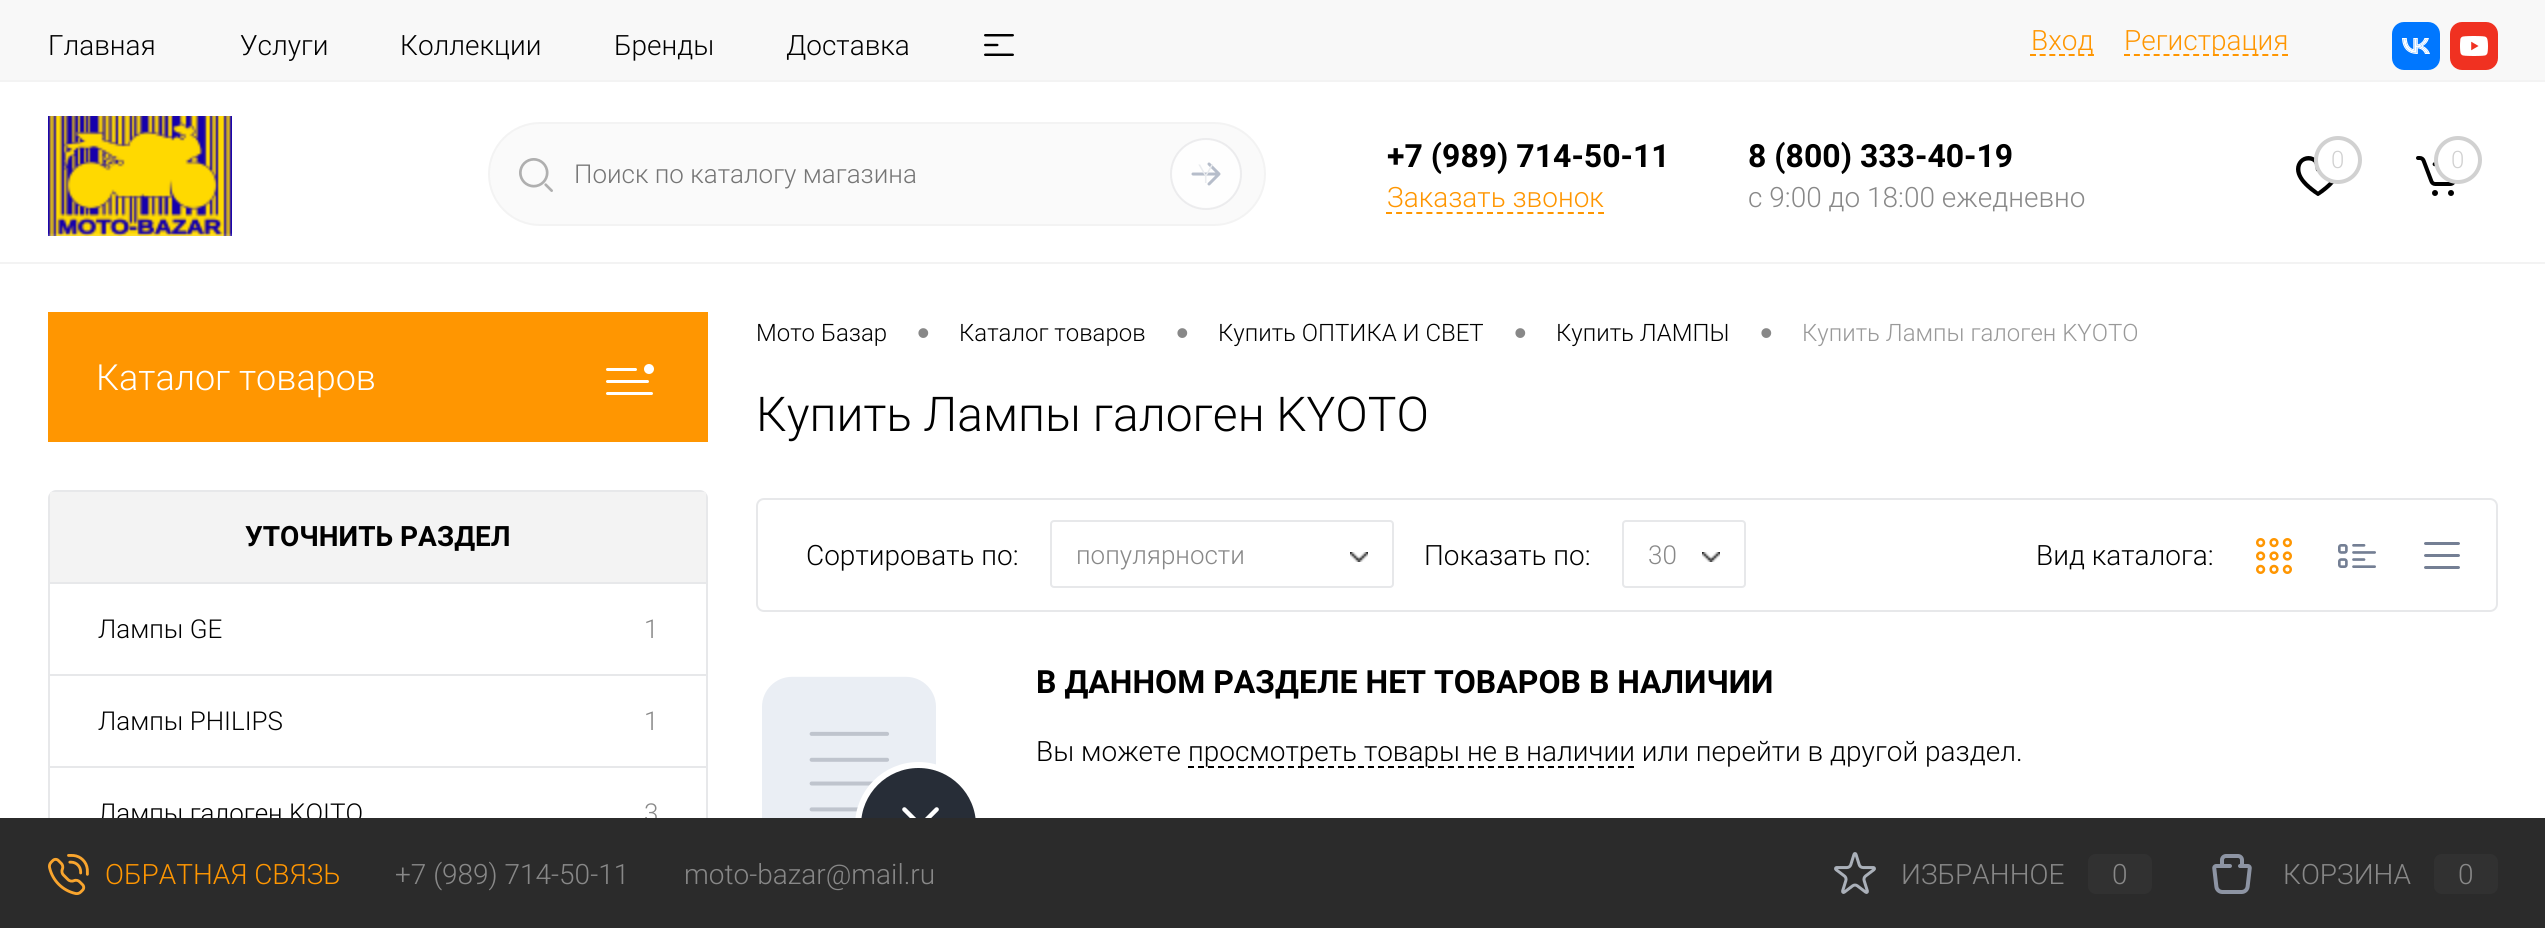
#include <cairo/cairo.h>
#include <math.h>
#include <stddef.h>

typedef struct { double x, y; const char *s; } line_t;
typedef struct { double x, y, w, h; unsigned color; } box_t;
static cairo_t *cr;

static void rgb(unsigned color)
{
	cairo_set_source_rgb(cr, (color >> 16) / 255.0, (color >> 8 & 255) / 255.0, (color & 255) / 255.0);
}

static void rrect(double x, double y, double w, double h, double r)
{
	cairo_new_sub_path(cr);
	cairo_arc(cr, x + w - r, y + h - r, r, 0, M_PI / 2);
	cairo_arc(cr, x + r, y + h - r, r, M_PI / 2, M_PI);
	cairo_arc(cr, x + r, y + r, r, M_PI, 1.5 * M_PI);
	cairo_arc(cr, x + w - r, y + r, r, 1.5 * M_PI, 2 * M_PI);
	cairo_close_path(cr);
}

static void image(const char *path, double x, double y, double w, double h)
{
	cairo_surface_t *image = cairo_image_surface_create_from_png(path);
	cairo_save(cr);
	cairo_set_source_surface(cr, image, x, y);
	cairo_rectangle(cr, x, y, w, h);
	cairo_fill(cr);
	cairo_restore(cr);
	cairo_surface_destroy(image);
}

int main(void) {
	cairo_surface_t *surface = cairo_image_surface_create(CAIRO_FORMAT_RGB24, 2545, 928);
	cr = cairo_create(surface);
	cairo_font_options_t *options = cairo_font_options_create();
	cairo_font_options_set_hint_metrics(options, CAIRO_HINT_METRICS_OFF);
	cairo_font_options_set_hint_style(options, CAIRO_HINT_STYLE_NONE);
	cairo_set_font_options(cr, options);
	cairo_set_miter_limit(cr, 4);
	rgb(0xffffff);
	cairo_paint(cr);
	rgb(0xf8f8f8);
	cairo_rectangle(cr, 0, 0, 2545, 80);
	cairo_fill(cr);
	rgb(0xf3f3f3);
	cairo_rectangle(cr, 0, 80, 2545, 2);
	cairo_fill(cr);
	image("img/1.png", 984, 34, 30, 22);
	cairo_new_path(cr);
	cairo_move_to(cr, 2030, 55);
	cairo_line_to(cr, 2094, 55);
	rgb(0xff9601);
	cairo_set_dash(cr, (double[]){6, 3.66}, 2, 0);
	cairo_stroke(cr);
	cairo_new_path(cr);
	cairo_move_to(cr, 2124, 55);
	cairo_line_to(cr, 2288, 55);
	cairo_set_dash(cr, (double[]){6, 3.88}, 2, 0);
	cairo_stroke(cr);
	image("img/2.png", 2392, 22, 48, 48);
	image("img/3.png", 2450, 22, 48, 48);
	rgb(0xf3f3f3);
	cairo_rectangle(cr, 0, 262, 2545, 2);
	cairo_fill(cr);
	image("img/4.png", 48, 116, 184, 120);
	cairo_new_path(cr);
	cairo_move_to(cr, 1386, 213);
	cairo_line_to(cr, 1604, 213);
	rgb(0xff9601);
	cairo_set_dash(cr, (double[]){6, 4.1}, 2, 0);
	cairo_stroke(cr);
	image("img/5.png", 2296, 156, 38, 40);
	rgb(0xffffff);
	cairo_arc(cr, 2338, 160, 22, 0, 2 * M_PI);
	cairo_fill_preserve(cr);
	rgb(0xd1d1d1);
	cairo_set_line_width(cr, 4);
	cairo_set_dash(cr, NULL, 0, 0);
	cairo_stroke(cr);
	image("img/6.png", 2416, 156, 40, 40);
	rgb(0xffffff);
	cairo_arc(cr, 2458, 160, 22, 0, 2 * M_PI);
	cairo_fill_preserve(cr);
	rgb(0xd1d1d1);
	cairo_stroke(cr);
	rgb(0xfafafa);
	rrect(489, 123, 776, 102, 51);
	cairo_fill_preserve(cr);
	rgb(0xf3f3f3);
	cairo_set_line_width(cr, 2);
	cairo_stroke(cr);
	image("img/7.png", 519, 158, 34, 34);
	image("img/8.png", 1170, 138, 72, 72);
	rgb(0xff9601);
	cairo_rectangle(cr, 48, 312, 660, 130);
	cairo_fill(cr);
	image("img/9.png", 606, 364, 48, 31);
	rgb(0xe7e8ea);
	cairo_set_fill_rule(cr, CAIRO_FILL_RULE_EVEN_ODD);
	cairo_new_path(cr);
	cairo_move_to(cr, 56, 490);
	cairo_line_to(cr, 700, 490);
	cairo_curve_to(cr, 704, 490, 708, 494, 708, 498);
	cairo_line_to(cr, 708, 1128);
	cairo_curve_to(cr, 708, 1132, 704, 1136, 700, 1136);
	cairo_line_to(cr, 56, 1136);
	cairo_curve_to(cr, 52, 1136, 48, 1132, 48, 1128);
	cairo_line_to(cr, 48, 498);
	cairo_curve_to(cr, 48, 494, 52, 490, 56, 490);
	cairo_close_path(cr);
	cairo_move_to(cr, 56, 492);
	cairo_line_to(cr, 700, 492);
	cairo_curve_to(cr, 703, 492, 706, 495, 706, 498);
	cairo_line_to(cr, 706, 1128);
	cairo_curve_to(cr, 706, 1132, 703, 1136, 700, 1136);
	cairo_line_to(cr, 56, 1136);
	cairo_curve_to(cr, 53, 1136, 50, 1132, 50, 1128);
	cairo_line_to(cr, 50, 498);
	cairo_curve_to(cr, 50, 495, 53, 492, 56, 492);
	cairo_close_path(cr);
	cairo_fill(cr);
	{
		static const box_t items[] = {
			{50, 492, 656, 90, 0xf3f3f3},
			{50, 582, 656, 2, 0xe7e8ea},
			{50, 674, 656, 2, 0xe7e8ea},
			{50, 766, 656, 2, 0xe7e8ea},
		};
		for (size_t i = 0; i < sizeof items / sizeof *items; i++) {
			rgb(items[i].color);
			cairo_rectangle(cr, items[i].x, items[i].y, items[i].w, items[i].h);
			cairo_fill(cr);
		}
	}
	rrect(757, 499, 1740, 112, 7);
	cairo_stroke(cr);
	rrect(1051, 521, 342, 66, 3);
	cairo_stroke(cr);
	image("img/10.png", 1350, 552, 18, 10);
	rrect(1623, 521, 122, 66, 3);
	cairo_stroke(cr);
	image("img/10.png", 1702, 552, 18, 10);
	image("img/11.png", 2256, 538, 36, 36);
	image("img/12.png", 2338, 544, 38, 24);
	image("img/13.png", 2424, 542, 36, 27);
	image("img/14.png", 762, 676, 214, 142);
	cairo_new_path(cr);
	cairo_move_to(cr, 1188, 767);
	cairo_line_to(cr, 1634, 767);
	rgb(0x000000);
	cairo_set_dash(cr, (double[]){6, 4}, 2, 0);
	cairo_stroke(cr);
	cairo_select_font_face(cr, "Roboto Light", CAIRO_FONT_SLANT_NORMAL, CAIRO_FONT_WEIGHT_NORMAL);
	cairo_set_font_size(cr, 28);
	{
		static const line_t items[] = {
			{48, 55, "Главная"},
			{240, 55, "Услуги"},
			{400, 55, "Коллекции"},
			{614, 55, "Бренды"},
			{786, 55, "Доставка"},
		};
		for (size_t i = 0; i < sizeof items / sizeof *items; i++) {
			cairo_move_to(cr, items[i].x, items[i].y);
			cairo_show_text(cr, items[i].s);
		}
	}
	rgb(0xff9601);
	cairo_move_to(cr, 2031, 50);
	cairo_show_text(cr, "Вход");
	cairo_move_to(cr, 2124, 50);
	cairo_show_text(cr, "Регистрация");
	cairo_select_font_face(cr, "Roboto", CAIRO_FONT_SLANT_NORMAL, CAIRO_FONT_WEIGHT_BOLD);
	cairo_set_font_size(cr, 32);
	rgb(0x000000);
	cairo_move_to(cr, 1387, 167);
	cairo_show_text(cr, "+7 (989) 714-50-11");
	cairo_select_font_face(cr, "Roboto Light", CAIRO_FONT_SLANT_NORMAL, CAIRO_FONT_WEIGHT_NORMAL);
	cairo_set_font_size(cr, 28);
	rgb(0xff9601);
	cairo_move_to(cr, 1387, 207);
	cairo_show_text(cr, "Заказать звонок");
	cairo_select_font_face(cr, "Roboto", CAIRO_FONT_SLANT_NORMAL, CAIRO_FONT_WEIGHT_BOLD);
	cairo_set_font_size(cr, 32);
	rgb(0x000000);
	cairo_move_to(cr, 1748, 167);
	cairo_show_text(cr, "8 (800) 333-40-19");
	cairo_select_font_face(cr, "Roboto Light", CAIRO_FONT_SLANT_NORMAL, CAIRO_FONT_WEIGHT_NORMAL);
	cairo_set_font_size(cr, 28);
	rgb(0x888888);
	cairo_move_to(cr, 1748, 207);
	cairo_show_text(cr, "с 9:00 до 18:00 ежедневно");
	cairo_set_font_size(cr, 24);
	rgb(0xd1d1d1);
	cairo_move_to(cr, 2331, 168);
	cairo_show_text(cr, "0");
	cairo_move_to(cr, 2451, 168);
	cairo_show_text(cr, "0");
	cairo_set_font_size(cr, 26);
	rgb(0x757575);
	cairo_move_to(cr, 574, 183);
	cairo_show_text(cr, "Поиск по каталогу магазина");
	rgb(0xeaecef);
	cairo_move_to(cr, 1198, 183);
	cairo_show_text(cr, "Y");
	cairo_set_font_size(cr, 36);
	rgb(0xffffff);
	cairo_move_to(cr, 96, 390);
	cairo_show_text(cr, "Каталог товаров");
	cairo_select_font_face(cr, "Roboto", CAIRO_FONT_SLANT_NORMAL, CAIRO_FONT_WEIGHT_BOLD);
	cairo_set_font_size(cr, 28);
	rgb(0x000000);
	cairo_move_to(cr, 245, 546);
	cairo_show_text(cr, "УТОЧНИТЬ РАЗДЕЛ");
	cairo_select_font_face(cr, "Roboto Light", CAIRO_FONT_SLANT_NORMAL, CAIRO_FONT_WEIGHT_NORMAL);
	cairo_set_font_size(cr, 26);
	cairo_move_to(cr, 98, 638);
	cairo_show_text(cr, "Лампы GE");
	rgb(0x888888);
	cairo_move_to(cr, 644, 638);
	cairo_show_text(cr, "1");
	rgb(0x000000);
	cairo_move_to(cr, 98, 730);
	cairo_show_text(cr, "Лампы PHILIPS");
	rgb(0x888888);
	cairo_move_to(cr, 644, 730);
	cairo_show_text(cr, "1");
	rgb(0x000000);
	cairo_move_to(cr, 98, 822);
	cairo_show_text(cr, "Лампы галоген KOITO");
	rgb(0x888888);
	cairo_move_to(cr, 644, 822);
	cairo_show_text(cr, "3");
	cairo_set_font_size(cr, 24);
	rgb(0x000000);
	cairo_move_to(cr, 756, 341);
	cairo_show_text(cr, "Мото Базар");
	cairo_select_font_face(cr, "Liberation Sans", CAIRO_FONT_SLANT_NORMAL, CAIRO_FONT_WEIGHT_NORMAL);
	cairo_set_font_size(cr, 36);
	rgb(0x888888);
	cairo_move_to(cr, 917, 345);
	cairo_show_text(cr, "•");
	cairo_select_font_face(cr, "Roboto Light", CAIRO_FONT_SLANT_NORMAL, CAIRO_FONT_WEIGHT_NORMAL);
	cairo_set_font_size(cr, 24);
	rgb(0x000000);
	cairo_move_to(cr, 959, 341);
	cairo_show_text(cr, "Каталог товаров");
	cairo_select_font_face(cr, "Liberation Sans", CAIRO_FONT_SLANT_NORMAL, CAIRO_FONT_WEIGHT_NORMAL);
	cairo_set_font_size(cr, 36);
	rgb(0x888888);
	cairo_move_to(cr, 1176, 345);
	cairo_show_text(cr, "•");
	cairo_select_font_face(cr, "Roboto Light", CAIRO_FONT_SLANT_NORMAL, CAIRO_FONT_WEIGHT_NORMAL);
	cairo_set_font_size(cr, 24);
	rgb(0x000000);
	cairo_move_to(cr, 1218, 341);
	cairo_show_text(cr, "Купить ОПТИКА И СВЕТ");
	cairo_select_font_face(cr, "Liberation Sans", CAIRO_FONT_SLANT_NORMAL, CAIRO_FONT_WEIGHT_NORMAL);
	cairo_set_font_size(cr, 36);
	rgb(0x888888);
	cairo_move_to(cr, 1514, 345);
	cairo_show_text(cr, "•");
	cairo_select_font_face(cr, "Roboto Light", CAIRO_FONT_SLANT_NORMAL, CAIRO_FONT_WEIGHT_NORMAL);
	cairo_set_font_size(cr, 24);
	rgb(0x000000);
	cairo_move_to(cr, 1556, 341);
	cairo_show_text(cr, "Купить ЛАМПЫ");
	cairo_select_font_face(cr, "Liberation Sans", CAIRO_FONT_SLANT_NORMAL, CAIRO_FONT_WEIGHT_NORMAL);
	cairo_set_font_size(cr, 36);
	rgb(0x888888);
	cairo_move_to(cr, 1760, 345);
	cairo_show_text(cr, "•");
	cairo_select_font_face(cr, "Roboto Light", CAIRO_FONT_SLANT_NORMAL, CAIRO_FONT_WEIGHT_NORMAL);
	cairo_set_font_size(cr, 24);
	rgb(0x999999);
	cairo_move_to(cr, 1802, 341);
	cairo_show_text(cr, "Купить Лампы галоген KYOTO");
	cairo_set_font_size(cr, 48);
	rgb(0x000000);
	cairo_move_to(cr, 756, 431);
	cairo_show_text(cr, "Купить Лампы галоген KYOTO");
	cairo_set_font_size(cr, 28);
	cairo_move_to(cr, 806, 565);
	cairo_show_text(cr, "Сортировать по:");
	cairo_set_font_size(cr, 26);
	rgb(0x888888);
	cairo_move_to(cr, 1076, 564);
	cairo_show_text(cr, "популярности");
	cairo_set_font_size(cr, 28);
	rgb(0x000000);
	cairo_move_to(cr, 1424, 565);
	cairo_show_text(cr, "Показать по:");
	cairo_set_font_size(cr, 26);
	rgb(0x888888);
	cairo_move_to(cr, 1648, 564);
	cairo_show_text(cr, "30");
	cairo_set_font_size(cr, 28);
	rgb(0x000000);
	cairo_move_to(cr, 2036, 565);
	cairo_show_text(cr, "Вид каталога:");
	cairo_select_font_face(cr, "Roboto", CAIRO_FONT_SLANT_NORMAL, CAIRO_FONT_WEIGHT_BOLD);
	cairo_set_font_size(cr, 32);
	cairo_move_to(cr, 1036, 693);
	cairo_show_text(cr, "В ДАННОМ РАЗДЕЛЕ НЕТ ТОВАРОВ В НАЛИЧИИ");
	cairo_select_font_face(cr, "Roboto Light", CAIRO_FONT_SLANT_NORMAL, CAIRO_FONT_WEIGHT_NORMAL);
	cairo_set_font_size(cr, 28);
	cairo_move_to(cr, 1036, 761);
	cairo_show_text(cr, "Вы можете");
	cairo_move_to(cr, 1188, 761);
	cairo_show_text(cr, "просмотреть товары не в наличии или перейти в другой раздел.");
	rgb(0x2b2b2b);
	cairo_rectangle(cr, 0, 818, 2545, 110);
	cairo_fill(cr);
	image("img/15.png", 48, 854, 41, 41);
	rgb(0xff9601);
	cairo_move_to(cr, 105, 884);
	cairo_show_text(cr, "ОБРАТНАЯ СВЯЗЬ");
	rgb(0x888888);
	cairo_move_to(cr, 395, 884);
	cairo_show_text(cr, "+7 (989) 714-50-11");
	cairo_move_to(cr, 684, 884);
	cairo_show_text(cr, "moto-bazar@mail.ru");
	image("img/16.png", 1834, 852, 42, 42);
	cairo_move_to(cr, 1901, 884);
	cairo_show_text(cr, "ИЗБРАННОЕ");
	rgb(0x313131);
	rrect(2088, 854, 64, 40, 8);
	cairo_fill(cr);
	rgb(0x888888);
	cairo_move_to(cr, 2112, 884);
	cairo_show_text(cr, "0");
	image("img/17.png", 2212, 854, 40, 40);
	cairo_move_to(cr, 2283, 884);
	cairo_show_text(cr, "КОРЗИНА");
	rgb(0x313131);
	rrect(2434, 854, 64, 40, 8);
	cairo_fill(cr);
	rgb(0x888888);
	cairo_move_to(cr, 2458, 884);
	cairo_show_text(cr, "0");
	cairo_surface_write_to_png(surface, "page.png");
	cairo_font_options_destroy(options);
	cairo_destroy(cr);
	cairo_surface_destroy(surface);
	return 0;
}
